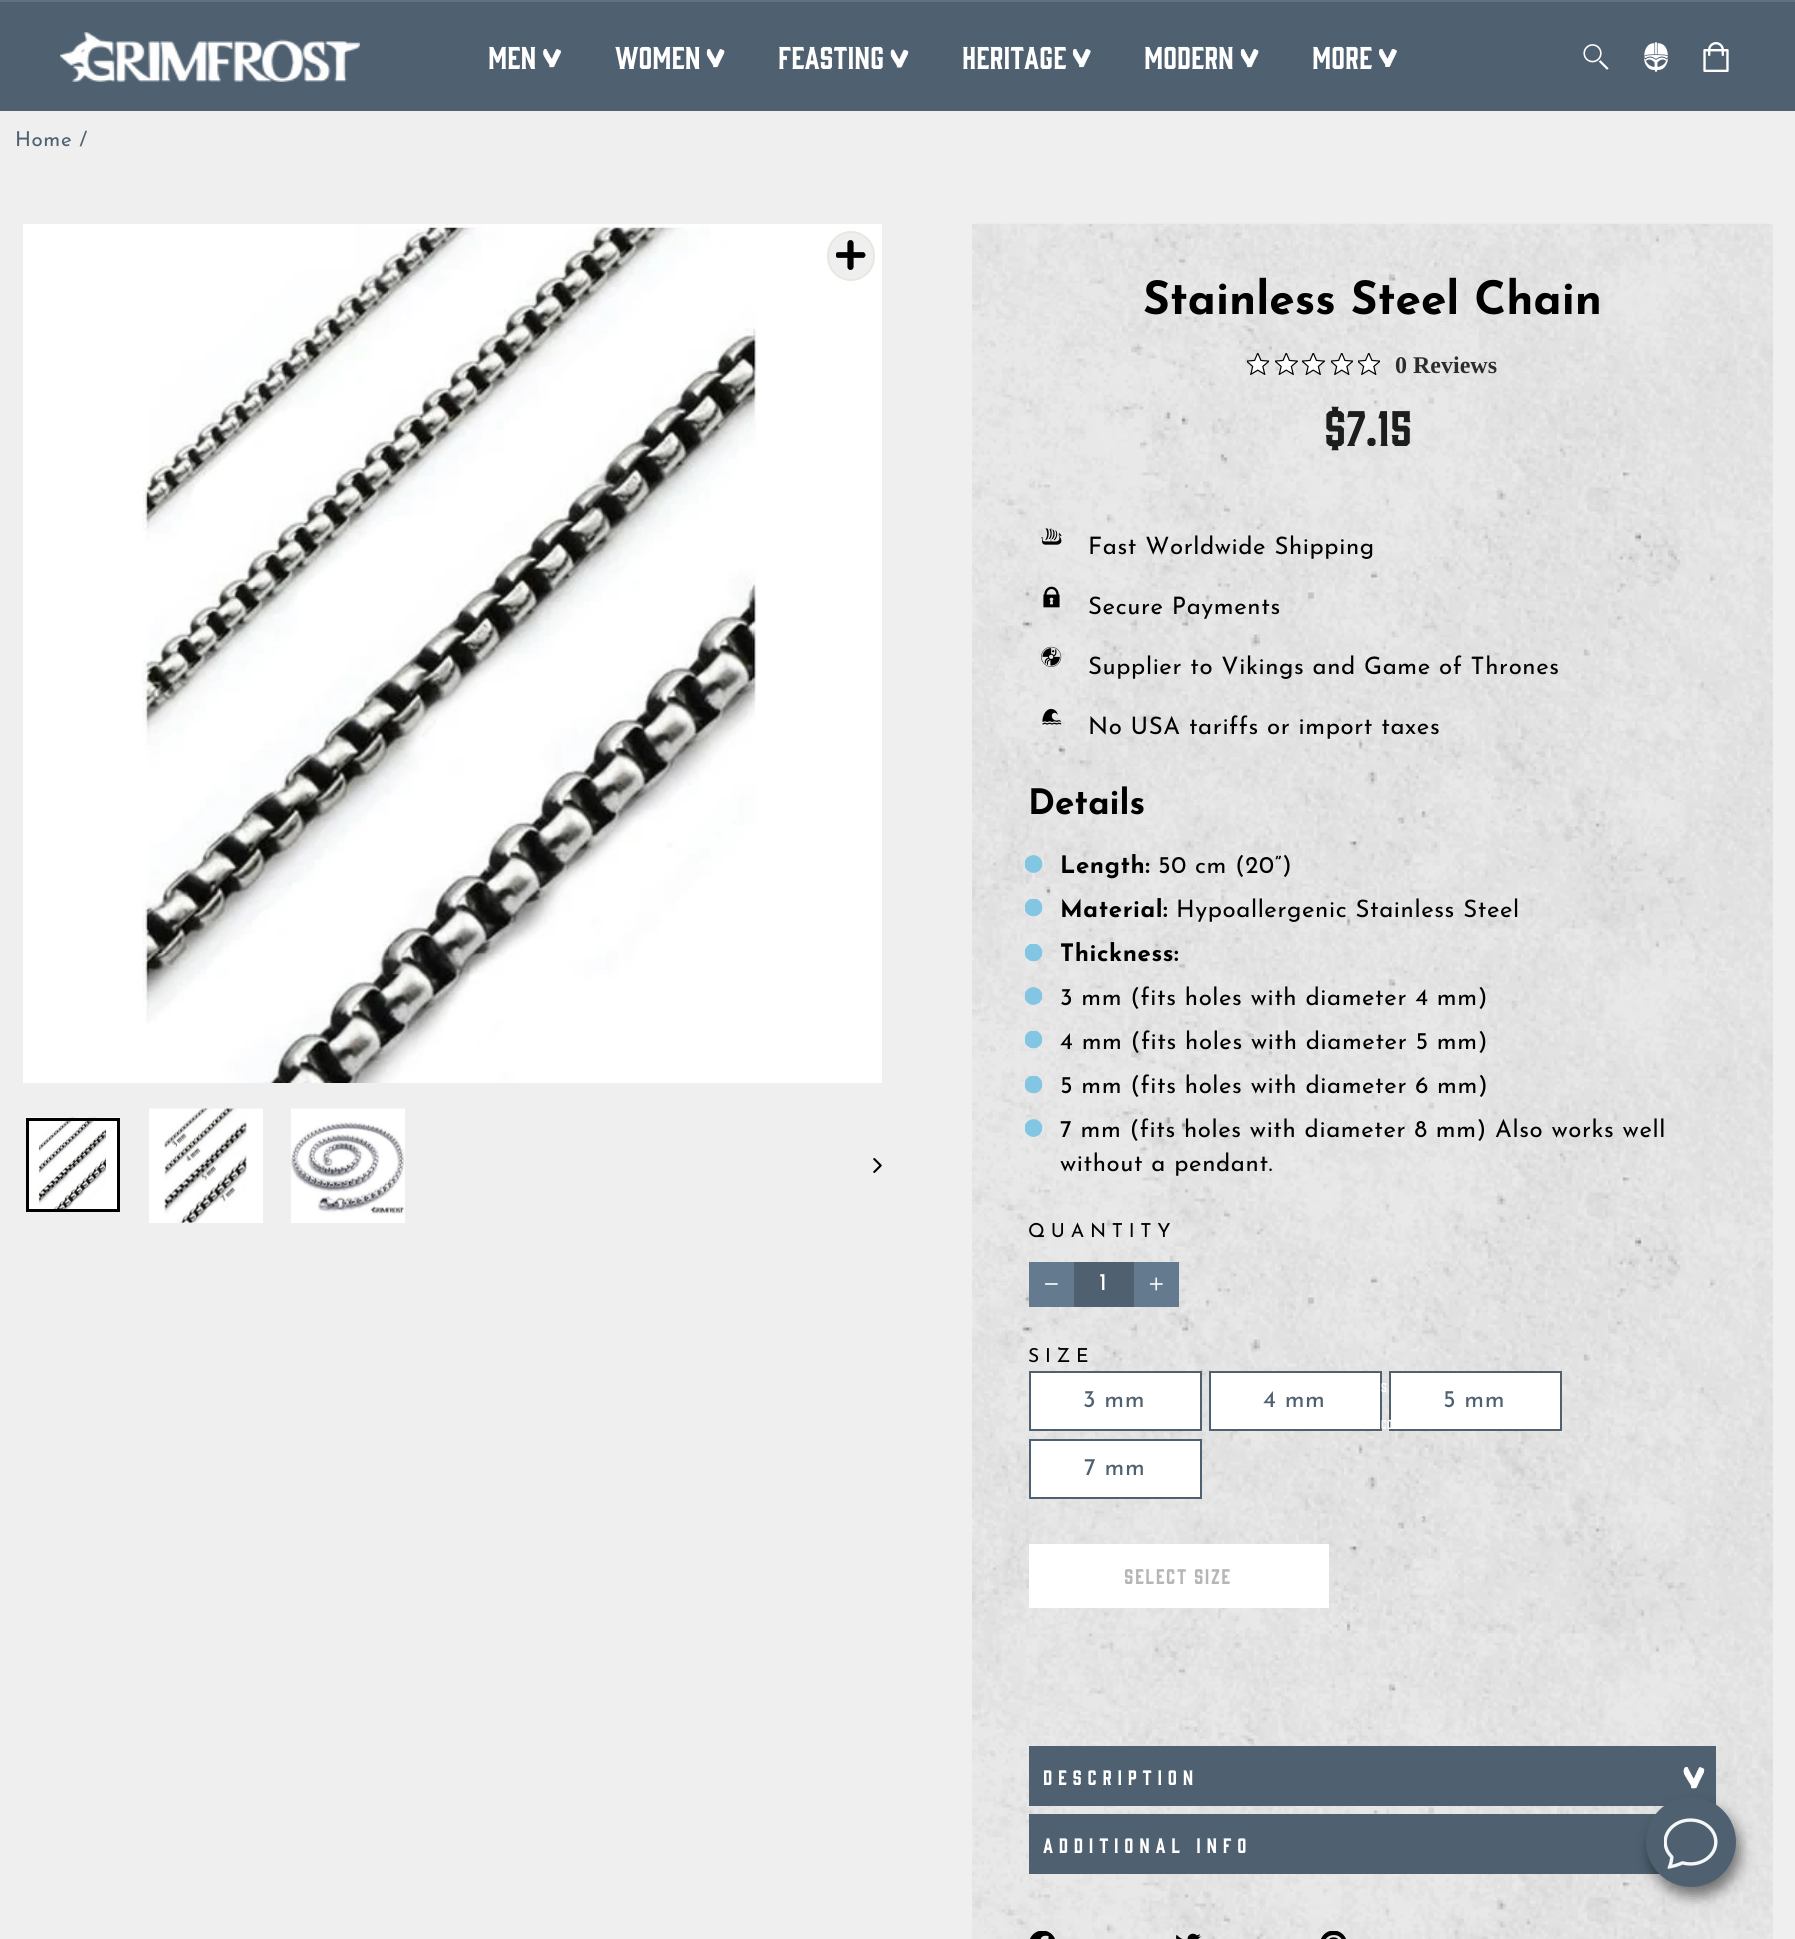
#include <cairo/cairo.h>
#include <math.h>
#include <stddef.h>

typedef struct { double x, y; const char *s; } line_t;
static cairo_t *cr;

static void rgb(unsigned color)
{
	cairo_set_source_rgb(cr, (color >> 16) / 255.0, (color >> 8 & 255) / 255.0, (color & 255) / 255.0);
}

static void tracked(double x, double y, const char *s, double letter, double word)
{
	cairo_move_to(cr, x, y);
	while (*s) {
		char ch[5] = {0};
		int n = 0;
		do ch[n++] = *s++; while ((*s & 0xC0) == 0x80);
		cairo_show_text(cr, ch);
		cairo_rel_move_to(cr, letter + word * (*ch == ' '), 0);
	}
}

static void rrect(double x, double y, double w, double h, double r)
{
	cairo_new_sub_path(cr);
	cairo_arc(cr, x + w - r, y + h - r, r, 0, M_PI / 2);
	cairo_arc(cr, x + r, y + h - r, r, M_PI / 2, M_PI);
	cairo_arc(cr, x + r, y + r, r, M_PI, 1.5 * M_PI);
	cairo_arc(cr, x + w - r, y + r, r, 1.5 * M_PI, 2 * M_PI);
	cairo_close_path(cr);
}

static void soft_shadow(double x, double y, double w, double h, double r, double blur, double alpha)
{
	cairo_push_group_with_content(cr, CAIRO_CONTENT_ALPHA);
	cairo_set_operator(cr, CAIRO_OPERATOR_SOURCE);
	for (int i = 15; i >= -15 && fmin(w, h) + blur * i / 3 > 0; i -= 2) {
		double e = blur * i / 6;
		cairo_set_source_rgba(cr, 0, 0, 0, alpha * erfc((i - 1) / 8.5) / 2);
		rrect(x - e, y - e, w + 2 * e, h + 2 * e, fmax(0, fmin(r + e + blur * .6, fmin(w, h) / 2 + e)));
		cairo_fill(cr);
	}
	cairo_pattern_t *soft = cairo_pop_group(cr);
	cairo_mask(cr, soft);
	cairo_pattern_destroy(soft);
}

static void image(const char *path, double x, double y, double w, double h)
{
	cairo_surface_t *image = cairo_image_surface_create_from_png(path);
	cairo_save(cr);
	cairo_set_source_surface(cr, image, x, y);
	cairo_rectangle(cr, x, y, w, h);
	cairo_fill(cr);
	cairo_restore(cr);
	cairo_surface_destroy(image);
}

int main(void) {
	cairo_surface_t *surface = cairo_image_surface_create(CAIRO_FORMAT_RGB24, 1795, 1939);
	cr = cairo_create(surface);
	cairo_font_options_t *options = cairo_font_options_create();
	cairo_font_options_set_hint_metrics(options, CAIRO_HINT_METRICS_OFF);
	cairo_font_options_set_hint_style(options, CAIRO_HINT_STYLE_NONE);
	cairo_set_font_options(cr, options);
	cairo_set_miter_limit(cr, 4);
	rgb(0xefefef);
	cairo_paint(cr);
	rgb(0x4f6171);
	cairo_rectangle(cr, 0, 2, 1795, 109);
	cairo_fill(cr);
	rgb(0x61717f);
	cairo_rectangle(cr, 0, 0, 1795, 2);
	cairo_fill(cr);
	image("img/1.png", 60, 32, 300, 50);
	image("img/2.png", 543, 49, 18, 19);
	image("img/3.png", 706, 49, 19, 19);
	image("img/4.png", 890, 49, 19, 19);
	image("img/5.png", 1072, 49, 19, 19);
	image("img/3.png", 1240, 49, 19, 19);
	image("img/6.png", 1379, 49, 18, 18);
	image("img/7.png", 1583, 44, 26, 26);
	image("img/8.png", 1644, 42, 24, 30);
	image("img/9.png", 1703, 42, 26, 30);
	rgb(0xffffff);
	cairo_rectangle(cr, 23, 224, 859, 859);
	cairo_fill(cr);
	image("img/10.png", 141, 224, 616, 859);
	rgb(0xefefef);
	rrect(828, 232, 46, 48, 23);
	cairo_fill_preserve(cr);
	rgb(0xe8e8e1);
	cairo_stroke(cr);
	image("img/11.png", 836, 240, 30, 30);
	image("img/12.png", 26, 1117, 94, 92);
	cairo_rectangle(cr, 27.5, 1119.5, 91, 91);
	rgb(0x000000);
	cairo_set_line_width(cr, 3);
	cairo_stroke(cr);
	rgb(0xffffff);
	cairo_rectangle(cr, 149, 1109, 114, 114);
	cairo_fill(cr);
	image("img/13.png", 149, 1108, 113, 115);
	cairo_rectangle(cr, 291, 1215, 114, 8);
	cairo_fill(cr);
	image("img/14.png", 291, 1108, 114, 107);
	image("img/15.png", 873, 1158, 9, 15);
	image("img/16.png", 972, 223, 801, 1716);
	image("img/17.png", 1247, 353, 22, 22);
	image("img/18.png", 1275, 353, 23, 22);
	image("img/19.png", 1302, 353, 23, 22);
	image("img/20.png", 1331, 353, 22, 22);
	image("img/21.png", 1358, 353, 22, 22);
	image("img/22.png", 1041, 528, 21, 17);
	image("img/23.png", 1043, 586, 17, 22);
	image("img/24.png", 1041, 646, 21, 21);
	image("img/25.png", 1042, 708, 20, 17);
	image("img/26.png", 1025, 855, 18, 18);
	image("img/27.png", 1025, 899, 18, 18);
	image("img/28.png", 1025, 944, 18, 18);
	image("img/29.png", 1025, 987, 18, 18);
	image("img/30.png", 1025, 1031, 18, 18);
	image("img/31.png", 1025, 1076, 18, 18);
	image("img/32.png", 1025, 1119, 18, 18);
	rgb(0x647b8f);
	cairo_rectangle(cr, 1029, 1262, 45, 45);
	cairo_fill(cr);
	image("img/33.png", 1044, 1283, 14, 2);
	rgb(0x4f6171);
	cairo_rectangle(cr, 1074, 1262, 60, 45);
	cairo_fill(cr);
	rgb(0x647b8f);
	cairo_rectangle(cr, 1134, 1262, 45, 45);
	cairo_fill(cr);
	image("img/34.png", 1149, 1277, 14, 14);
	rgb(0xffffff);
	cairo_rectangle(cr, 1030, 1372, 171, 58);
	cairo_fill_preserve(cr);
	rgb(0x4f6171);
	cairo_set_line_width(cr, 2);
	cairo_stroke(cr);
	rgb(0xffffff);
	cairo_rectangle(cr, 1210, 1372, 171, 58);
	cairo_fill_preserve(cr);
	rgb(0x4f6171);
	cairo_stroke(cr);
	rgb(0xffffff);
	cairo_rectangle(cr, 1390, 1372, 171, 58);
	cairo_fill_preserve(cr);
	rgb(0x4f6171);
	cairo_stroke(cr);
	rgb(0xffffff);
	cairo_rectangle(cr, 1030, 1440, 171, 58);
	cairo_fill_preserve(cr);
	rgb(0x4f6171);
	cairo_stroke(cr);
	rgb(0xffffff);
	cairo_rectangle(cr, 1029, 1544, 300, 64);
	cairo_fill(cr);
	rgb(0x4f6171);
	cairo_rectangle(cr, 1029, 1746, 687, 60);
	cairo_fill(cr);
	image("img/35.png", 1683, 1767, 22, 22);
	cairo_rectangle(cr, 1029, 1814, 631, 60);
	cairo_fill(cr);
	image("img/36.png", 1030, 1931, 25, 8);
	image("img/37.png", 1176, 1933, 25, 6);
	image("img/38.png", 1321, 1931, 25, 8);
	rgb(0x000000);
	soft_shadow(1650, 1806, 90, 90, 45, 7, 0.5);
	rgb(0x4f6171);
	cairo_arc(cr, 1691, 1842, 45, 0, 2 * M_PI);
	cairo_fill(cr);
	image("img/39.png", 1664, 1818, 54, 51);
	cairo_select_font_face(cr, "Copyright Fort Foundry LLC", CAIRO_FONT_SLANT_NORMAL, CAIRO_FONT_WEIGHT_NORMAL);
	cairo_set_font_size(cr, 29);
	rgb(0xffffff);
	{
		static const line_t items[] = {
			{488, 69, "MEN"},
			{615, 69, "WOMEN"},
			{778, 69, "FEASTING"},
			{962, 69, "HERITAGE"},
			{1144, 69, "MODERN"},
			{1312, 69, "MORE"},
		};
		for (size_t i = 0; i < sizeof items / sizeof *items; i++) {
			cairo_move_to(cr, items[i].x, items[i].y);
			cairo_show_text(cr, items[i].s);
		}
	}
	cairo_select_font_face(cr, "Josefin Sans Thin", CAIRO_FONT_SLANT_NORMAL, CAIRO_FONT_WEIGHT_NORMAL);
	cairo_set_font_size(cr, 20.5);
	rgb(0x4f6171);
	tracked(15, 146, "Home /", 0.6, 0);
	cairo_select_font_face(cr, "Josefin Sans", CAIRO_FONT_SLANT_NORMAL, CAIRO_FONT_WEIGHT_BOLD);
	cairo_set_font_size(cr, 45.9);
	rgb(0x000000);
	cairo_move_to(cr, 1143, 314);
	cairo_show_text(cr, "Stainless Steel Chain");
	cairo_select_font_face(cr, "Liberation Serif", CAIRO_FONT_SLANT_NORMAL, CAIRO_FONT_WEIGHT_BOLD);
	cairo_set_font_size(cr, 24);
	rgb(0x2c2c2c);
	cairo_move_to(cr, 1395, 373);
	cairo_show_text(cr, "0 Reviews");
	cairo_select_font_face(cr, "Copyright Fort Foundry LLC", CAIRO_FONT_SLANT_NORMAL, CAIRO_FONT_WEIGHT_NORMAL);
	cairo_set_font_size(cr, 45.9);
	rgb(0x1c1d1d);
	cairo_move_to(cr, 1324, 446);
	cairo_show_text(cr, "$7.15");
	cairo_select_font_face(cr, "Josefin Sans Thin", CAIRO_FONT_SLANT_NORMAL, CAIRO_FONT_WEIGHT_NORMAL);
	cairo_set_font_size(cr, 24);
	rgb(0x000000);
	{
		static const line_t items[] = {
			{1088, 554, "Fast Worldwide Shipping"},
			{1088, 614, "Secure Payments"},
			{1088, 674, "Supplier to Vikings and Game of Thrones"},
			{1088, 734, "No USA tariffs or import taxes"},
		};
		for (size_t i = 0; i < sizeof items / sizeof *items; i++) {
			tracked(items[i].x, items[i].y, items[i].s, 0.6, 0);
		}
	}
	cairo_select_font_face(cr, "Josefin Sans", CAIRO_FONT_SLANT_NORMAL, CAIRO_FONT_WEIGHT_BOLD);
	cairo_set_font_size(cr, 35);
	cairo_move_to(cr, 1028, 814);
	cairo_show_text(cr, "Details");
	cairo_set_font_size(cr, 24);
	tracked(1060, 873, "Length:", 0.6, 0);
	cairo_select_font_face(cr, "Josefin Sans Thin", CAIRO_FONT_SLANT_NORMAL, CAIRO_FONT_WEIGHT_NORMAL);
	tracked(1158, 873, "50 cm (20”)", 0.6, 0);
	cairo_select_font_face(cr, "Josefin Sans", CAIRO_FONT_SLANT_NORMAL, CAIRO_FONT_WEIGHT_BOLD);
	tracked(1060, 917, "Material:", 0.6, 0);
	cairo_select_font_face(cr, "Josefin Sans Thin", CAIRO_FONT_SLANT_NORMAL, CAIRO_FONT_WEIGHT_NORMAL);
	tracked(1176, 917, "Hypoallergenic Stainless Steel", 0.6, 0);
	cairo_select_font_face(cr, "Josefin Sans", CAIRO_FONT_SLANT_NORMAL, CAIRO_FONT_WEIGHT_BOLD);
	tracked(1060, 961, "Thickness:", 0.6, 0);
	cairo_select_font_face(cr, "Josefin Sans Thin", CAIRO_FONT_SLANT_NORMAL, CAIRO_FONT_WEIGHT_NORMAL);
	{
		static const line_t items[] = {
			{1060, 1005, "3 mm (fits holes with diameter 4 mm)"},
			{1060, 1049, "4 mm (fits holes with diameter 5 mm)"},
			{1060, 1093, "5 mm (fits holes with diameter 6 mm)"},
			{1060, 1137, "7 mm (fits holes with diameter 8 mm) Also works well"},
			{1060, 1171, "without a pendant."},
		};
		for (size_t i = 0; i < sizeof items / sizeof *items; i++) {
			tracked(items[i].x, items[i].y, items[i].s, 0.6, 0);
		}
	}
	cairo_set_font_size(cr, 19.25);
	tracked(1028, 1237, "QUANTITY", 5.75, 0);
	cairo_set_font_size(cr, 24);
	rgb(0xffffff);
	tracked(1099, 1290, "1", 0.6, 0);
	cairo_set_font_size(cr, 19.25);
	rgb(0x000000);
	tracked(1028, 1362, "SIZE", 5.75, 0);
	cairo_set_font_size(cr, 24);
	rgb(0x4f6171);
	{
		static const line_t items[] = {
			{1083, 1407, "3 mm"},
			{1263, 1407, "4 mm"},
			{1443, 1407, "5 mm"},
			{1084, 1475, "7 mm"},
		};
		for (size_t i = 0; i < sizeof items / sizeof *items; i++) {
			tracked(items[i].x, items[i].y, items[i].s, 0.6, 0);
		}
	}
	cairo_select_font_face(cr, "Copyright Fort Foundry LLC", CAIRO_FONT_SLANT_NORMAL, CAIRO_FONT_WEIGHT_NORMAL);
	cairo_set_font_size(cr, 19.5);
	rgb(0xb6b6b6);
	tracked(1124, 1584, "SELECT SIZE", 1.5, 0);
	cairo_set_font_size(cr, 19.25);
	rgb(0xffffff);
	tracked(1043, 1785, "DESCRIPTION", 5.75, 0);
	tracked(1043, 1853, "ADDITIONAL INFO", 5.75, 0);
	cairo_set_font_size(cr, 12);
	cairo_move_to(cr, 1381, 1392);
	cairo_show_text(cr, "s");
	rgb(0xf9fafa);
	cairo_move_to(cr, 1381, 1429);
	cairo_show_text(cr, "co");
	rgb(0xe1e1e1);
	cairo_move_to(cr, 1421, 1520);
	cairo_show_text(cr, ".");
	cairo_surface_write_to_png(surface, "page.png");
	cairo_font_options_destroy(options);
	cairo_destroy(cr);
	cairo_surface_destroy(surface);
	return 0;
}
